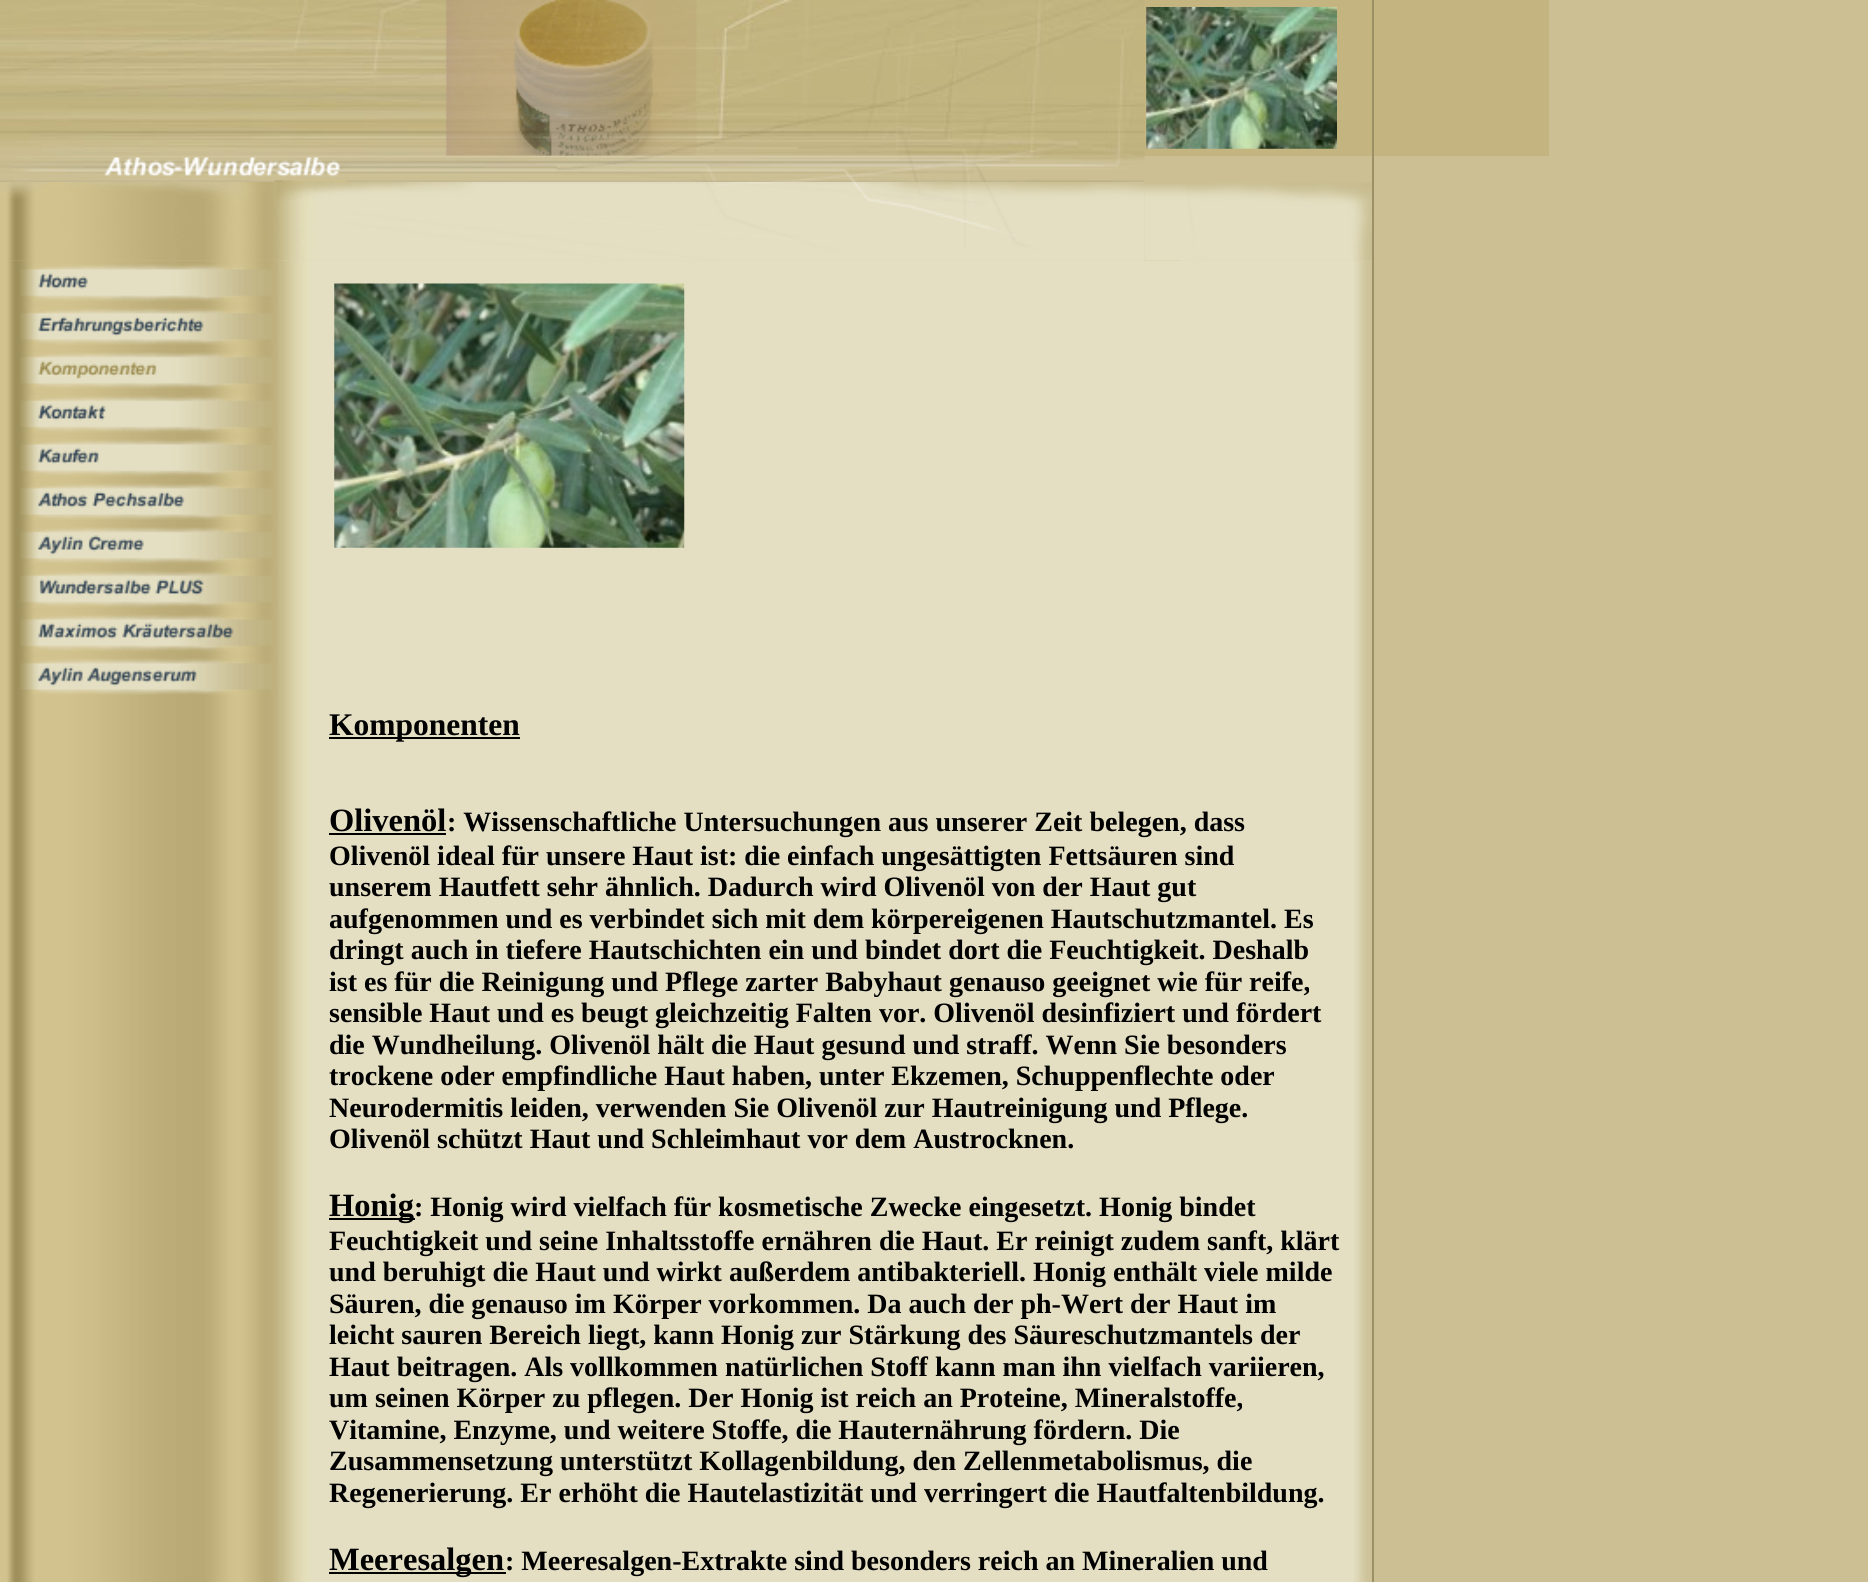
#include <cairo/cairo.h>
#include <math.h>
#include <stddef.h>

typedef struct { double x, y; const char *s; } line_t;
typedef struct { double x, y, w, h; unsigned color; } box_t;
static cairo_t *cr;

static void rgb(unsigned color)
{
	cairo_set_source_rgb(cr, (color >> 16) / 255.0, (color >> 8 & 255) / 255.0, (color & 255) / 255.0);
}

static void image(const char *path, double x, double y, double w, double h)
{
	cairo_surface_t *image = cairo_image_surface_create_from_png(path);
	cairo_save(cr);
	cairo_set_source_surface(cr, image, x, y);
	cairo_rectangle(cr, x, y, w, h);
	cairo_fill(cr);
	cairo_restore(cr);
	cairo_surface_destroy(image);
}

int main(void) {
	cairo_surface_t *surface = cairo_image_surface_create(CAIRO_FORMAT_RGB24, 1868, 1582);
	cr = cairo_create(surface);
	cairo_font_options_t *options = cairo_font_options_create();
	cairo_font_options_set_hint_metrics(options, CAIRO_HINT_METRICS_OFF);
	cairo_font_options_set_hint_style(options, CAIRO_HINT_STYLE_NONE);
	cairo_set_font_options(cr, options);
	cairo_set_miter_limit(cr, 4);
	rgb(0xccbf93);
	cairo_paint(cr);
	rgb(0xc3b480);
	cairo_rectangle(cr, 0, 0, 1372, 156);
	cairo_fill(cr);
	image("img/1.png", 0, 0, 1145, 156);
	image("img/2.png", 1146, 7, 191, 142);
	rgb(0x9c9066);
	cairo_rectangle(cr, 1372, 0, 2, 1582);
	cairo_fill(cr);
	rgb(0xc3b480);
	cairo_rectangle(cr, 1374, 0, 175, 156);
	cairo_fill(cr);
	image("img/3.png", 0, 155, 1145, 27);
	image("img/9.png", 0, 260, 280, 1322);
	image("img/4.png", 0, 182, 280, 79);
	image("img/5.png", 280, 184, 865, 77);
	image("img/7.png", 1144, 184, 228, 77);
	image("img/20.png", 280, 260, 30, 1322);
	image("img/6.png", 280, 182, 865, 79);
	image("img/22.png", 1354, 260, 18, 1322);
	image("img/8.png", 1179, 182, 193, 79);
	rgb(0xe4dfc2);
	cairo_rectangle(cr, 310, 261, 1044, 1321);
	cairo_fill(cr);
	image("img/10.png", 20, 264, 253, 38);
	image("img/11.png", 20, 308, 253, 37);
	image("img/12.png", 20, 352, 253, 37);
	image("img/13.png", 20, 395, 253, 38);
	image("img/14.png", 20, 439, 253, 38);
	image("img/15.png", 20, 483, 253, 37);
	image("img/16.png", 20, 527, 253, 37);
	image("img/17.png", 20, 570, 253, 38);
	image("img/18.png", 20, 614, 253, 38);
	image("img/19.png", 20, 658, 253, 37);
	image("img/21.png", 334, 283, 351, 265);
	{
		static const box_t items[] = {
			{329, 737, 191, 2, 0x000000},
			{329, 833, 117, 2, 0x000000},
			{329, 1218, 86, 2, 0x000000},
			{329, 1572, 177, 2, 0x000000},
		};
		for (size_t i = 0; i < sizeof items / sizeof *items; i++) {
			rgb(items[i].color);
			cairo_rectangle(cr, items[i].x, items[i].y, items[i].w, items[i].h);
			cairo_fill(cr);
		}
	}
	cairo_select_font_face(cr, "Liberation Serif", CAIRO_FONT_SLANT_NORMAL, CAIRO_FONT_WEIGHT_BOLD);
	cairo_set_font_size(cr, 31.5);
	cairo_move_to(cr, 329, 735);
	cairo_show_text(cr, "Komponenten");
	cairo_set_font_size(cr, 32.5);
	cairo_move_to(cr, 329, 831);
	cairo_show_text(cr, "Olivenöl");
	cairo_set_font_size(cr, 28);
	{
		static const line_t items[] = {
			{447, 831, ": Wissenschaftliche Untersuchungen aus unserer Zeit belegen, dass"},
			{329, 865, "Olivenöl ideal für unsere Haut ist: die einfach ungesättigten Fettsäuren sind"},
			{329, 896, "unserem Hautfett sehr ähnlich. Dadurch wird Olivenöl von der Haut gut"},
			{329, 928, "aufgenommen und es verbindet sich mit dem körpereigenen Hautschutzmantel. Es"},
			{329, 959, "dringt auch in tiefere Hautschichten ein und bindet dort die Feuchtigkeit. Deshalb"},
			{329, 991, "ist es für die Reinigung und Pflege zarter Babyhaut genauso geeignet wie für reife,"},
			{329, 1022, "sensible Haut und es beugt gleichzeitig Falten vor. Olivenöl desinfiziert und fördert"},
			{329, 1054, "die Wundheilung. Olivenöl hält die Haut gesund und straff. Wenn Sie besonders"},
			{329, 1085, "trockene oder empfindliche Haut haben, unter Ekzemen, Schuppenflechte oder"},
			{329, 1117, "Neurodermitis leiden, verwenden Sie Olivenöl zur Hautreinigung und Pflege."},
			{329, 1148, "Olivenöl schützt Haut und Schleimhaut vor dem Austrocknen."},
		};
		for (size_t i = 0; i < sizeof items / sizeof *items; i++) {
			cairo_move_to(cr, items[i].x, items[i].y);
			cairo_show_text(cr, items[i].s);
		}
	}
	cairo_set_font_size(cr, 32.5);
	cairo_move_to(cr, 329, 1216);
	cairo_show_text(cr, "Honig");
	cairo_set_font_size(cr, 28);
	{
		static const line_t items[] = {
			{414, 1216, ": Honig wird vielfach für kosmetische Zwecke eingesetzt. Honig bindet"},
			{329, 1250, "Feuchtigkeit und seine Inhaltsstoffe ernähren die Haut. Er reinigt zudem sanft, klärt"},
			{329, 1281, "und beruhigt die Haut und wirkt außerdem antibakteriell. Honig enthält viele milde"},
			{329, 1313, "Säuren, die genauso im Körper vorkommen. Da auch der ph-Wert der Haut im"},
			{329, 1344, "leicht sauren Bereich liegt, kann Honig zur Stärkung des Säureschutzmantels der"},
			{329, 1376, "Haut beitragen. Als vollkommen natürlichen Stoff kann man ihn vielfach variieren,"},
			{329, 1407, "um seinen Körper zu pflegen. Der Honig ist reich an Proteine, Mineralstoffe,"},
			{329, 1439, "Vitamine, Enzyme, und weitere Stoffe, die Hauternährung fördern. Die"},
			{329, 1470, "Zusammensetzung unterstützt Kollagenbildung, den Zellenmetabolismus, die"},
			{329, 1502, "Regenerierung. Er erhöht die Hautelastizität und verringert die Hautfaltenbildung."},
		};
		for (size_t i = 0; i < sizeof items / sizeof *items; i++) {
			cairo_move_to(cr, items[i].x, items[i].y);
			cairo_show_text(cr, items[i].s);
		}
	}
	cairo_set_font_size(cr, 32.5);
	cairo_move_to(cr, 329, 1570);
	cairo_show_text(cr, "Meeresalgen");
	cairo_set_font_size(cr, 28);
	cairo_move_to(cr, 505, 1570);
	cairo_show_text(cr, ": Meeresalgen-Extrakte sind besonders reich an Mineralien und");
	cairo_surface_write_to_png(surface, "page.png");
	cairo_font_options_destroy(options);
	cairo_destroy(cr);
	cairo_surface_destroy(surface);
	return 0;
}
